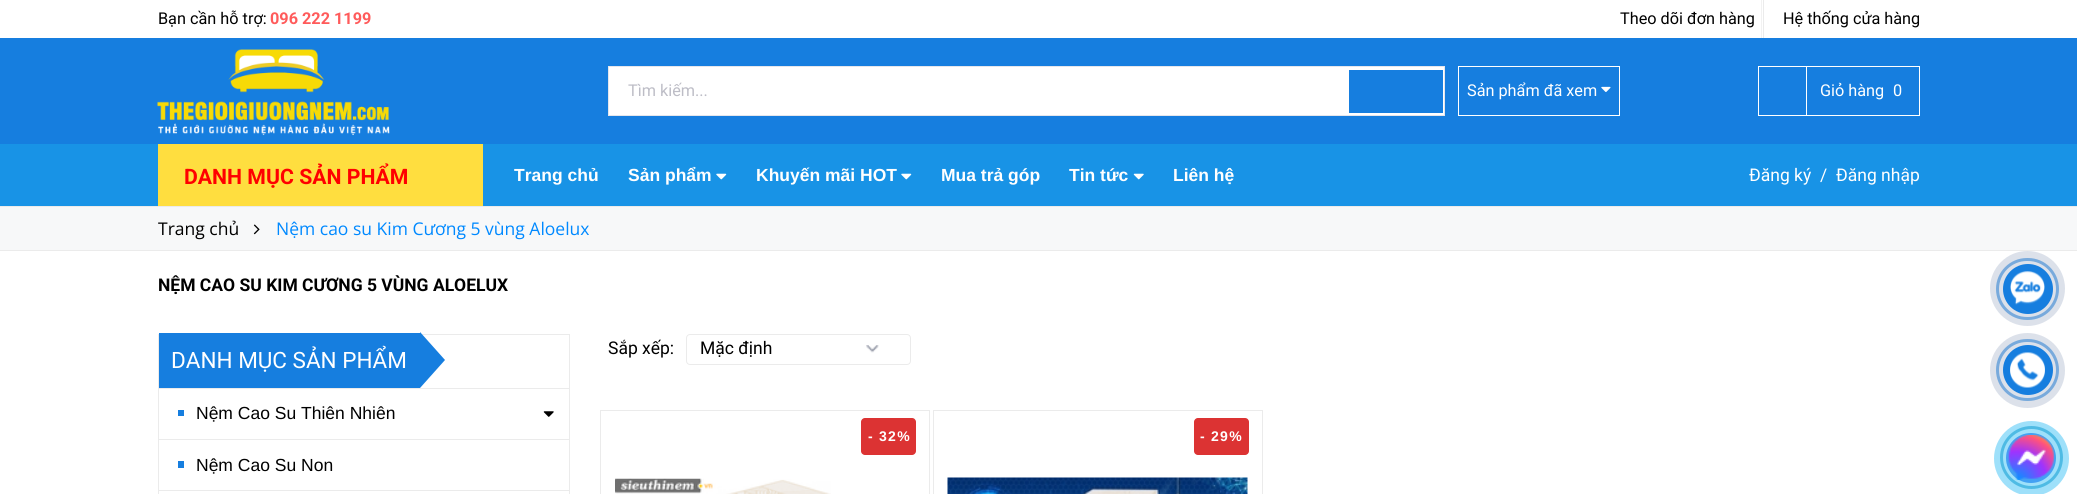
#include <cairo/cairo.h>
#include <math.h>
#include <stddef.h>

typedef struct { double x, y; const char *s; } line_t;
typedef struct { double x, y, w, h; unsigned color; } box_t;
static cairo_t *cr;

static void rgb(unsigned color)
{
	cairo_set_source_rgb(cr, (color >> 16) / 255.0, (color >> 8 & 255) / 255.0, (color & 255) / 255.0);
}

static void tracked(double x, double y, const char *s, double letter, double word)
{
	cairo_move_to(cr, x, y);
	while (*s) {
		char ch[5] = {0};
		int n = 0;
		do ch[n++] = *s++; while ((*s & 0xC0) == 0x80);
		cairo_show_text(cr, ch);
		cairo_rel_move_to(cr, letter + word * (*ch == ' '), 0);
	}
}

static void rrect(double x, double y, double w, double h, double r)
{
	cairo_new_sub_path(cr);
	cairo_arc(cr, x + w - r, y + h - r, r, 0, M_PI / 2);
	cairo_arc(cr, x + r, y + h - r, r, M_PI / 2, M_PI);
	cairo_arc(cr, x + r, y + r, r, M_PI, 1.5 * M_PI);
	cairo_arc(cr, x + w - r, y + r, r, 1.5 * M_PI, 2 * M_PI);
	cairo_close_path(cr);
}

static void image(const char *path, double x, double y, double w, double h)
{
	cairo_surface_t *image = cairo_image_surface_create_from_png(path);
	cairo_save(cr);
	cairo_set_source_surface(cr, image, x, y);
	cairo_rectangle(cr, x, y, w, h);
	cairo_fill(cr);
	cairo_restore(cr);
	cairo_surface_destroy(image);
}

int main(void) {
	cairo_surface_t *surface = cairo_image_surface_create(CAIRO_FORMAT_RGB24, 2077, 494);
	cr = cairo_create(surface);
	cairo_font_options_t *options = cairo_font_options_create();
	cairo_font_options_set_hint_metrics(options, CAIRO_HINT_METRICS_OFF);
	cairo_font_options_set_hint_style(options, CAIRO_HINT_STYLE_NONE);
	cairo_set_font_options(cr, options);
	cairo_set_miter_limit(cr, 4);
	rgb(0xffffff);
	cairo_paint(cr);
	{
		static const box_t items[] = {
			{1761, 0, 1, 38, 0xf2f2f2},
			{1763, 0, 1, 38, 0xebebeb},
			{0, 38, 2077, 106, 0x167edf},
		};
		for (size_t i = 0; i < sizeof items / sizeof *items; i++) {
			rgb(items[i].color);
			cairo_rectangle(cr, items[i].x, items[i].y, items[i].w, items[i].h);
			cairo_fill(cr);
		}
	}
	image("img/1.png", 157, 49, 233, 87);
	rgb(0xffffff);
	cairo_rectangle(cr, 608.5, 66.5, 836, 49);
	cairo_fill_preserve(cr);
	rgb(0xe5e6ec);
	cairo_set_line_width(cr, 1);
	cairo_stroke(cr);
	rgb(0x167edf);
	cairo_rectangle(cr, 1349, 70, 94, 43);
	cairo_fill(cr);
	cairo_rectangle(cr, 1458.5, 66.5, 161, 49);
	rgb(0xffffff);
	cairo_stroke(cr);
	image("img/2.png", 1601, 86, 10, 6);
	cairo_rectangle(cr, 1758.5, 66.5, 161, 49);
	cairo_stroke(cr);
	{
		static const box_t items[] = {
			{1806, 66, 1, 50, 0xffffff},
			{0, 144, 2077, 62, 0x1893e6},
			{158, 144, 325, 62, 0xffde3f},
		};
		for (size_t i = 0; i < sizeof items / sizeof *items; i++) {
			rgb(items[i].color);
			cairo_rectangle(cr, items[i].x, items[i].y, items[i].w, items[i].h);
			cairo_fill(cr);
		}
	}
	image("img/3.png", 716, 173, 11, 7);
	image("img/3.png", 901, 173, 11, 7);
	image("img/4.png", 1133, 173, 11, 7);
	{
		static const box_t items[] = {
			{0, 207, 2077, 43, 0xf7f8f9},
			{0, 206, 2077, 1, 0xebebeb},
			{0, 250, 2077, 1, 0xebebeb},
		};
		for (size_t i = 0; i < sizeof items / sizeof *items; i++) {
			rgb(items[i].color);
			cairo_rectangle(cr, items[i].x, items[i].y, items[i].w, items[i].h);
			cairo_fill(cr);
		}
	}
	image("img/5.png", 253, 224, 7, 11);
	cairo_rectangle(cr, 158.5, 334.5, 411, 54);
	cairo_stroke(cr);
	rgb(0x167edf);
	cairo_rectangle(cr, 159, 333, 261, 55);
	cairo_fill(cr);
	cairo_new_path(cr);
	cairo_move_to(cr, 420, 388);
	cairo_line_to(cr, 420, 332);
	cairo_line_to(cr, 445, 360);
	cairo_close_path(cr);
	cairo_fill(cr);
	rgb(0xebebeb);
	cairo_set_fill_rule(cr, CAIRO_FILL_RULE_EVEN_ODD);
	cairo_new_path(cr);
	cairo_move_to(cr, 158, 389);
	cairo_line_to(cr, 570, 389);
	cairo_line_to(cr, 570, 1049);
	cairo_curve_to(cr, 570, 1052, 567, 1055, 564, 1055);
	cairo_line_to(cr, 164, 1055);
	cairo_curve_to(cr, 160, 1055, 158, 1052, 158, 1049);
	cairo_close_path(cr);
	cairo_move_to(cr, 159, 389);
	cairo_line_to(cr, 569, 389);
	cairo_line_to(cr, 569, 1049);
	cairo_curve_to(cr, 569, 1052, 567, 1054, 564, 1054);
	cairo_line_to(cr, 164, 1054);
	cairo_curve_to(cr, 161, 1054, 159, 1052, 159, 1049);
	cairo_close_path(cr);
	cairo_fill(cr);
	cairo_rectangle(cr, 159, 439, 410, 1);
	cairo_fill(cr);
	rgb(0x167edf);
	cairo_rectangle(cr, 178, 410, 6, 6);
	cairo_fill(cr);
	image("img/6.png", 543, 411, 11, 6);
	rgb(0xebebeb);
	cairo_rectangle(cr, 159, 490, 410, 1);
	cairo_fill(cr);
	rgb(0x167edf);
	cairo_rectangle(cr, 178, 461, 6, 7);
	cairo_fill(cr);
	image("img/7.png", 866, 345, 13, 8);
	rrect(686.5, 334.5, 224, 30, 3.5);
	rgb(0xebebeb);
	cairo_stroke(cr);
	cairo_rectangle(cr, 600.5, 410.5, 329, 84);
	cairo_stroke(cr);
	rgb(0xdc3333);
	rrect(861, 418, 55, 37, 4);
	cairo_fill(cr);
	image("img/8.png", 615, 478, 216, 16);
	cairo_rectangle(cr, 933.5, 410.5, 329, 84);
	rgb(0xebebeb);
	cairo_stroke(cr);
	rgb(0xdc3333);
	rrect(1194, 418, 55, 37, 4);
	cairo_fill(cr);
	image("img/9.png", 947, 477, 301, 17);
	cairo_arc(cr, 2031.5, 457.5, 30, 0, 2 * M_PI);
	rgb(0x80c4dc);
	cairo_set_line_width(cr, 3);
	cairo_stroke(cr);
	cairo_set_source_rgba(cr, 0, 0.686, 0.949, 0.38);
	cairo_arc(cr, 2031.5, 458.5, 37.5, 0, 2 * M_PI);
	cairo_fill(cr);
	rgb(0x43a1f3);
	cairo_arc(cr, 2031, 458, 25, 0, 2 * M_PI);
	cairo_fill(cr);
	image("img/10.png", 2007, 435, 47, 45);
	rrect(1997.5, 259.5, 60, 59, 29.5);
	rgb(0x8bbfef);
	cairo_stroke(cr);
	cairo_set_source_rgba(cr, 0.027, 0.161, 0.404, 0.14);
	cairo_arc(cr, 2027.5, 288.5, 37.5, 0, 2 * M_PI);
	cairo_fill(cr);
	rgb(0x167edf);
	cairo_arc(cr, 2028, 289, 25, 0, 2 * M_PI);
	cairo_fill(cr);
	image("img/11.png", 2010, 271, 35, 34);
	rrect(1997.5, 340.5, 60, 59, 29.5);
	rgb(0x8bbfef);
	cairo_stroke(cr);
	cairo_set_source_rgba(cr, 0.027, 0.161, 0.404, 0.14);
	cairo_arc(cr, 2027.5, 370.5, 37.5, 0, 2 * M_PI);
	cairo_fill(cr);
	rgb(0x167edf);
	cairo_arc(cr, 2028, 370, 25, 0, 2 * M_PI);
	cairo_fill(cr);
	image("img/12.png", 2010, 352, 35, 36);
	cairo_select_font_face(cr, "Roboto", CAIRO_FONT_SLANT_NORMAL, CAIRO_FONT_WEIGHT_NORMAL);
	cairo_set_font_size(cr, 16.25);
	rgb(0x000000);
	cairo_move_to(cr, 158, 24);
	cairo_show_text(cr, "Bạn cần hỗ trợ:");
	cairo_select_font_face(cr, "Roboto", CAIRO_FONT_SLANT_NORMAL, CAIRO_FONT_WEIGHT_BOLD);
	rgb(0xff5b5b);
	cairo_move_to(cr, 270, 24);
	cairo_show_text(cr, "096 222 1199");
	cairo_select_font_face(cr, "Roboto", CAIRO_FONT_SLANT_NORMAL, CAIRO_FONT_WEIGHT_NORMAL);
	rgb(0x000000);
	cairo_move_to(cr, 1620, 24);
	cairo_show_text(cr, "Theo dõi đơn hàng");
	cairo_move_to(cr, 1783, 24);
	cairo_show_text(cr, "Hệ thống cửa hàng");
	rgb(0xbdbdc6);
	cairo_move_to(cr, 628, 96);
	cairo_show_text(cr, "Tìm kiếm...");
	rgb(0xffffff);
	{
		static const line_t items[] = {
			{1467, 96, "Sản phẩm đã xem"},
			{1820, 96, "Giỏ hàng"},
			{1893, 96, "0"},
		};
		for (size_t i = 0; i < sizeof items / sizeof *items; i++) {
			cairo_move_to(cr, items[i].x, items[i].y);
			cairo_show_text(cr, items[i].s);
		}
	}
	cairo_select_font_face(cr, "Roboto", CAIRO_FONT_SLANT_NORMAL, CAIRO_FONT_WEIGHT_BOLD);
	cairo_set_font_size(cr, 21.25);
	rgb(0xff0000);
	cairo_move_to(cr, 184, 184);
	cairo_show_text(cr, "DANH MỤC SẢN PHẨM");
	cairo_select_font_face(cr, "Liberation Sans", CAIRO_FONT_SLANT_NORMAL, CAIRO_FONT_WEIGHT_BOLD);
	cairo_set_font_size(cr, 17.5);
	rgb(0xffffff);
	{
		static const line_t items[] = {
			{514, 181, "Trang chủ"},
			{628, 181, "Sản phẩm"},
			{756, 181, "Khuyến mãi HOT"},
			{941, 181, "Mua trả góp"},
			{1069, 181, "Tin tức"},
			{1173, 181, "Liên hệ"},
		};
		for (size_t i = 0; i < sizeof items / sizeof *items; i++) {
			cairo_move_to(cr, items[i].x, items[i].y);
			cairo_show_text(cr, items[i].s);
		}
	}
	cairo_select_font_face(cr, "Roboto", CAIRO_FONT_SLANT_NORMAL, CAIRO_FONT_WEIGHT_NORMAL);
	{
		static const line_t items[] = {
			{1749, 181, "Đăng ký"},
			{1820, 181, "/"},
			{1836, 181, "Đăng nhập"},
		};
		for (size_t i = 0; i < sizeof items / sizeof *items; i++) {
			cairo_move_to(cr, items[i].x, items[i].y);
			cairo_show_text(cr, items[i].s);
		}
	}
	cairo_select_font_face(cr, "Open Sans", CAIRO_FONT_SLANT_NORMAL, CAIRO_FONT_WEIGHT_NORMAL);
	rgb(0x000000);
	cairo_move_to(cr, 158, 235);
	cairo_show_text(cr, "Trang chủ");
	rgb(0x0089ff);
	cairo_move_to(cr, 276, 235);
	cairo_show_text(cr, "Nệm cao su Kim Cương 5 vùng Aloelux");
	cairo_select_font_face(cr, "Roboto", CAIRO_FONT_SLANT_NORMAL, CAIRO_FONT_WEIGHT_BOLD);
	rgb(0x000000);
	cairo_move_to(cr, 158, 291);
	cairo_show_text(cr, "NỆM CAO SU KIM CƯƠNG 5 VÙNG ALOELUX");
	cairo_select_font_face(cr, "Roboto", CAIRO_FONT_SLANT_NORMAL, CAIRO_FONT_WEIGHT_NORMAL);
	cairo_set_font_size(cr, 22.5);
	rgb(0xffffff);
	cairo_move_to(cr, 171, 368);
	cairo_show_text(cr, "DANH MỤC SẢN PHẨM");
	cairo_select_font_face(cr, "Liberation Sans", CAIRO_FONT_SLANT_NORMAL, CAIRO_FONT_WEIGHT_NORMAL);
	cairo_set_font_size(cr, 17.5);
	rgb(0x000000);
	cairo_move_to(cr, 196, 419);
	cairo_show_text(cr, "Nệm Cao Su Thiên Nhiên");
	cairo_move_to(cr, 196, 471);
	cairo_show_text(cr, "Nệm Cao Su Non");
	cairo_select_font_face(cr, "Roboto", CAIRO_FONT_SLANT_NORMAL, CAIRO_FONT_WEIGHT_NORMAL);
	cairo_move_to(cr, 608, 354);
	cairo_show_text(cr, "Sắp xếp:");
	cairo_move_to(cr, 700, 354);
	cairo_show_text(cr, "Mặc định");
	cairo_select_font_face(cr, "Liberation Sans", CAIRO_FONT_SLANT_NORMAL, CAIRO_FONT_WEIGHT_BOLD);
	cairo_set_font_size(cr, 14);
	rgb(0xffffff);
	tracked(868, 441, "- 32%", 1.25, 0);
	tracked(1200, 441, "- 29%", 1.25, 0);
	cairo_surface_write_to_png(surface, "page.png");
	cairo_font_options_destroy(options);
	cairo_destroy(cr);
	cairo_surface_destroy(surface);
	return 0;
}
